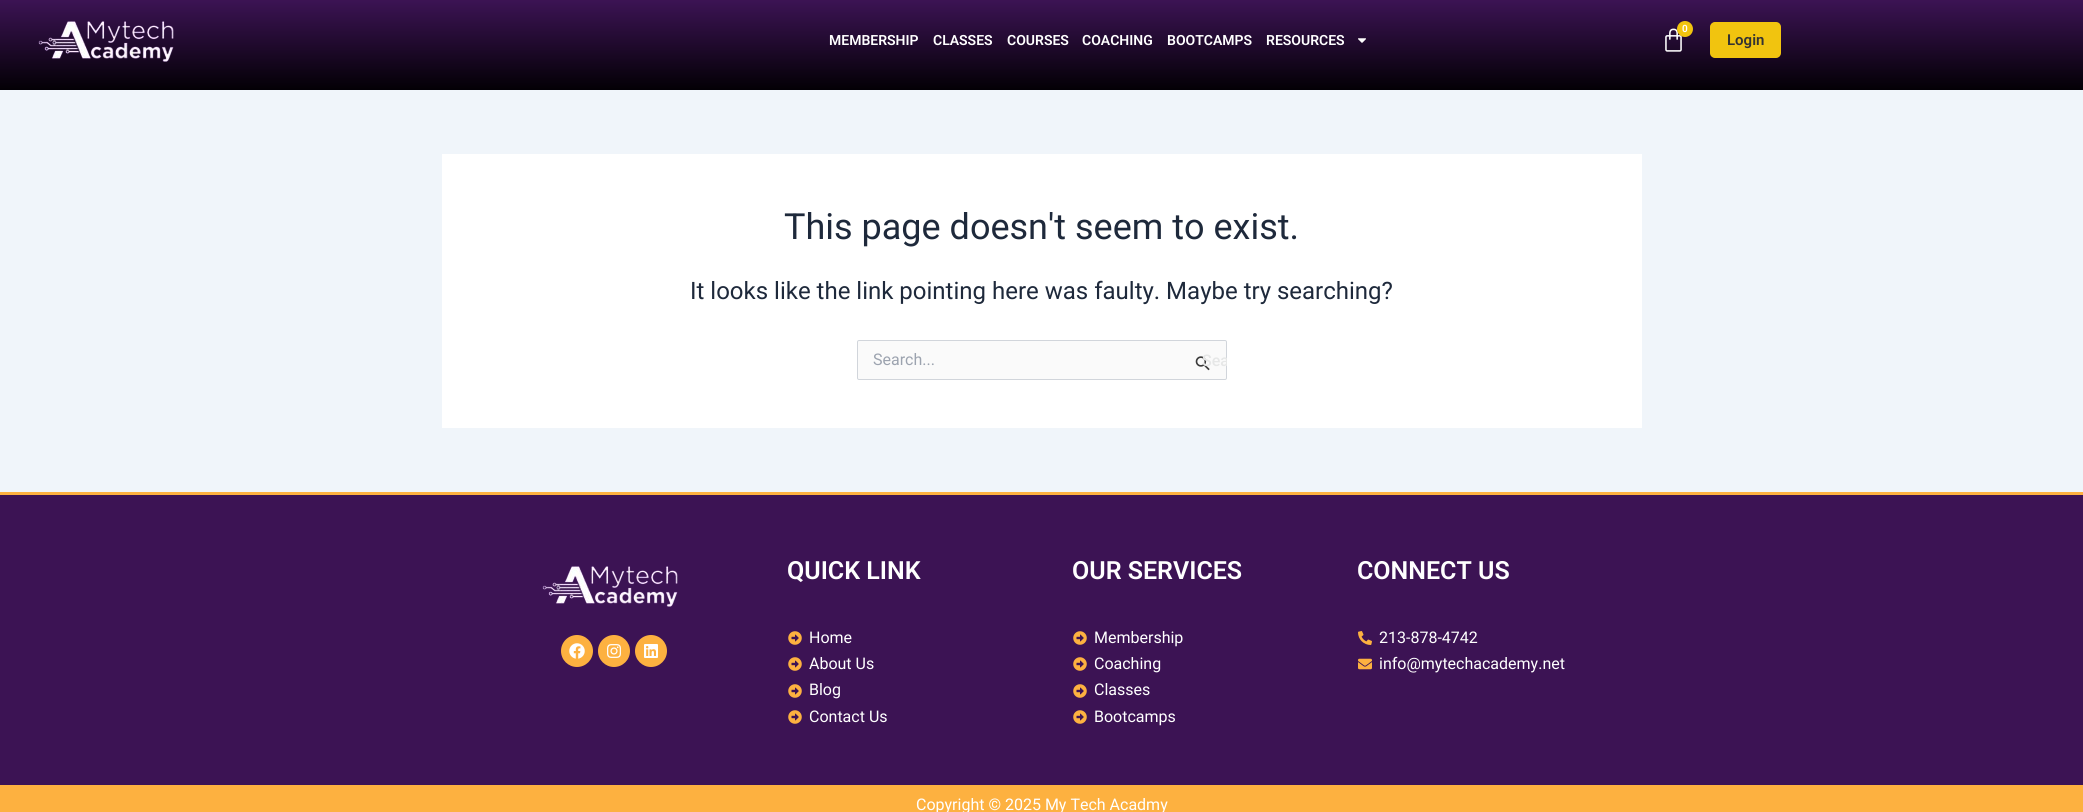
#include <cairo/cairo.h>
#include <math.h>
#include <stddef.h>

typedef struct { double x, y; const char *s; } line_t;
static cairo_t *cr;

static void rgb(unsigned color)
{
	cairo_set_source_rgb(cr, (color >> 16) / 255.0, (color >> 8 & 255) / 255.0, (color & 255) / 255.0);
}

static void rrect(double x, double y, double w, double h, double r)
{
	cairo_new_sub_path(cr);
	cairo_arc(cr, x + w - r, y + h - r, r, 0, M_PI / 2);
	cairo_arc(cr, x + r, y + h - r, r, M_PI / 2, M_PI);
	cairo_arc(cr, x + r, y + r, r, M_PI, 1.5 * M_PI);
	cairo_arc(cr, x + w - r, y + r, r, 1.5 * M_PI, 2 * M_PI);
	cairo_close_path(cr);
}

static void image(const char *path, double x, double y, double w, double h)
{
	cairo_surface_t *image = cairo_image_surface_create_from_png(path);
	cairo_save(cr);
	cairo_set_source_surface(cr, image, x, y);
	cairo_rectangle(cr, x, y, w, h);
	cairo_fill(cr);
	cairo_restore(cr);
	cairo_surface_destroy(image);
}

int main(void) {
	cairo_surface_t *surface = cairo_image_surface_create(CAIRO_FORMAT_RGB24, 2083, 812);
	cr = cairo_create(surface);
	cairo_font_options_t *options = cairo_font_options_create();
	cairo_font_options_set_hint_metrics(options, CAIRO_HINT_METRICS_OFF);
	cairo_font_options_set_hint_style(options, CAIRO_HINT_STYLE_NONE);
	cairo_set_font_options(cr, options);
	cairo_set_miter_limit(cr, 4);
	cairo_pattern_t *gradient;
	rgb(0xf0f5fa);
	cairo_paint(cr);
	gradient = cairo_pattern_create_linear(1042, 0, 1042, 90);
	cairo_pattern_add_color_stop_rgba(gradient, 0, 0.235, 0.075, 0.329, 1);
	cairo_pattern_add_color_stop_rgba(gradient, 1, 0.012, 0, 0.02, 1);
	cairo_set_source(cr, gradient);
	cairo_pattern_destroy(gradient);
	cairo_rectangle(cr, 0, 0, 2083, 90);
	cairo_fill(cr);
	image("img/1.png", 38, 21, 136, 41);
	image("img/2.png", 1358, 38, 8, 5);
	image("img/3.png", 1665, 28, 17, 24);
	rgb(0xf1c40f);
	cairo_arc(cr, 1685, 29, 8, 0, 2 * M_PI);
	cairo_fill(cr);
	rrect(1711, 23, 69, 34, 4);
	cairo_fill_preserve(cr);
	cairo_stroke(cr);
	rgb(0xffffff);
	cairo_rectangle(cr, 442, 154, 1200, 274);
	cairo_fill(cr);
	rgb(0xfafafa);
	rrect(857.5, 340.5, 369, 39, 1.5);
	cairo_fill_preserve(cr);
	rgb(0xd1d5db);
	cairo_set_line_width(cr, 1);
	cairo_stroke(cr);
	image("img/4.png", 1195, 356, 15, 15);
	rgb(0x3c1354);
	cairo_rectangle(cr, 0, 495, 2083, 290);
	cairo_fill(cr);
	rgb(0xfdb140);
	cairo_rectangle(cr, 0, 492, 2083, 3);
	cairo_fill(cr);
	image("img/5.png", 542, 566, 136, 41);
	cairo_arc(cr, 577, 651, 16, 0, 2 * M_PI);
	cairo_fill(cr);
	image("img/6.png", 569, 643, 16, 16);
	cairo_arc(cr, 614, 651, 16, 0, 2 * M_PI);
	cairo_fill(cr);
	image("img/7.png", 607, 644, 14, 14);
	cairo_arc(cr, 651, 651, 16, 0, 2 * M_PI);
	cairo_fill(cr);
	image("img/8.png", 644, 644, 14, 14);
	image("img/9.png", 788, 631, 14, 14);
	image("img/9.png", 788, 657, 14, 14);
	image("img/9.png", 788, 684, 14, 14);
	image("img/9.png", 788, 710, 14, 14);
	image("img/9.png", 1073, 631, 14, 14);
	image("img/9.png", 1073, 657, 14, 14);
	image("img/9.png", 1073, 684, 14, 14);
	image("img/9.png", 1073, 710, 14, 14);
	image("img/10.png", 1358, 631, 14, 14);
	image("img/11.png", 1358, 658, 14, 12);
	cairo_rectangle(cr, 0, 785, 2083, 27);
	cairo_fill(cr);
	cairo_select_font_face(cr, "Roboto SemiBold", CAIRO_FONT_SLANT_NORMAL, CAIRO_FONT_WEIGHT_NORMAL);
	cairo_set_font_size(cr, 14);
	rgb(0xffffff);
	{
		static const line_t items[] = {
			{829, 45, "MEMBERSHIP"},
			{933, 45, "CLASSES"},
			{1007, 45, "COURSES"},
			{1082, 45, "COACHING"},
			{1167, 45, "BOOTCAMPS"},
			{1266, 45, "RESOURCES"},
		};
		for (size_t i = 0; i < sizeof items / sizeof *items; i++) {
			cairo_move_to(cr, items[i].x, items[i].y);
			cairo_show_text(cr, items[i].s);
		}
	}
	cairo_set_font_size(cr, 10);
	cairo_move_to(cr, 1682, 32);
	cairo_show_text(cr, "0");
	cairo_set_font_size(cr, 15);
	rgb(0x333333);
	cairo_move_to(cr, 1727, 45);
	cairo_show_text(cr, "Login");
	cairo_select_font_face(cr, "Roboto", CAIRO_FONT_SLANT_NORMAL, CAIRO_FONT_WEIGHT_NORMAL);
	cairo_set_font_size(cr, 36);
	rgb(0x1e293b);
	cairo_move_to(cr, 784, 239);
	cairo_show_text(cr, "This page doesn't seem to exist.");
	cairo_set_font_size(cr, 24);
	cairo_move_to(cr, 690, 299);
	cairo_show_text(cr, "It looks like the link pointing here was faulty. Maybe try searching?");
	cairo_set_font_size(cr, 16);
	rgb(0x9ca3af);
	cairo_move_to(cr, 873, 365);
	cairo_show_text(cr, "Search...");
	cairo_save(cr);
	rrect(1182, 340, 45, 42, 2);
	cairo_clip(cr);
	cairo_select_font_face(cr, "Roboto Medium", CAIRO_FONT_SLANT_NORMAL, CAIRO_FONT_WEIGHT_NORMAL);
	rgb(0xe6e7e7);
	cairo_move_to(cr, 1202, 366);
	cairo_show_text(cr, "Sea");
	cairo_restore(cr);
	cairo_select_font_face(cr, "Roboto SemiBold", CAIRO_FONT_SLANT_NORMAL, CAIRO_FONT_WEIGHT_NORMAL);
	cairo_set_font_size(cr, 25);
	rgb(0xffffff);
	cairo_move_to(cr, 787, 579);
	cairo_show_text(cr, "QUICK LINK");
	cairo_select_font_face(cr, "Roboto", CAIRO_FONT_SLANT_NORMAL, CAIRO_FONT_WEIGHT_NORMAL);
	cairo_set_font_size(cr, 16);
	{
		static const line_t items[] = {
			{809, 643, "Home"},
			{809, 669, "About Us"},
			{809, 695, "Blog"},
			{809, 722, "Contact Us"},
		};
		for (size_t i = 0; i < sizeof items / sizeof *items; i++) {
			cairo_move_to(cr, items[i].x, items[i].y);
			cairo_show_text(cr, items[i].s);
		}
	}
	cairo_select_font_face(cr, "Roboto SemiBold", CAIRO_FONT_SLANT_NORMAL, CAIRO_FONT_WEIGHT_NORMAL);
	cairo_set_font_size(cr, 25);
	cairo_move_to(cr, 1072, 579);
	cairo_show_text(cr, "OUR SERVICES");
	cairo_select_font_face(cr, "Roboto", CAIRO_FONT_SLANT_NORMAL, CAIRO_FONT_WEIGHT_NORMAL);
	cairo_set_font_size(cr, 16);
	{
		static const line_t items[] = {
			{1094, 643, "Membership"},
			{1094, 669, "Coaching"},
			{1094, 695, "Classes"},
			{1094, 722, "Bootcamps"},
		};
		for (size_t i = 0; i < sizeof items / sizeof *items; i++) {
			cairo_move_to(cr, items[i].x, items[i].y);
			cairo_show_text(cr, items[i].s);
		}
	}
	cairo_select_font_face(cr, "Roboto SemiBold", CAIRO_FONT_SLANT_NORMAL, CAIRO_FONT_WEIGHT_NORMAL);
	cairo_set_font_size(cr, 25);
	cairo_move_to(cr, 1357, 579);
	cairo_show_text(cr, "CONNECT US");
	cairo_select_font_face(cr, "Roboto", CAIRO_FONT_SLANT_NORMAL, CAIRO_FONT_WEIGHT_NORMAL);
	cairo_set_font_size(cr, 16);
	{
		static const line_t items[] = {
			{1379, 643, "213-878-4742"},
			{1379, 669, "info@mytechacademy.net"},
			{916, 810, "Copyright © 2025 My Tech Acadmy"},
		};
		for (size_t i = 0; i < sizeof items / sizeof *items; i++) {
			cairo_move_to(cr, items[i].x, items[i].y);
			cairo_show_text(cr, items[i].s);
		}
	}
	cairo_surface_write_to_png(surface, "page.png");
	cairo_font_options_destroy(options);
	cairo_destroy(cr);
	cairo_surface_destroy(surface);
	return 0;
}
